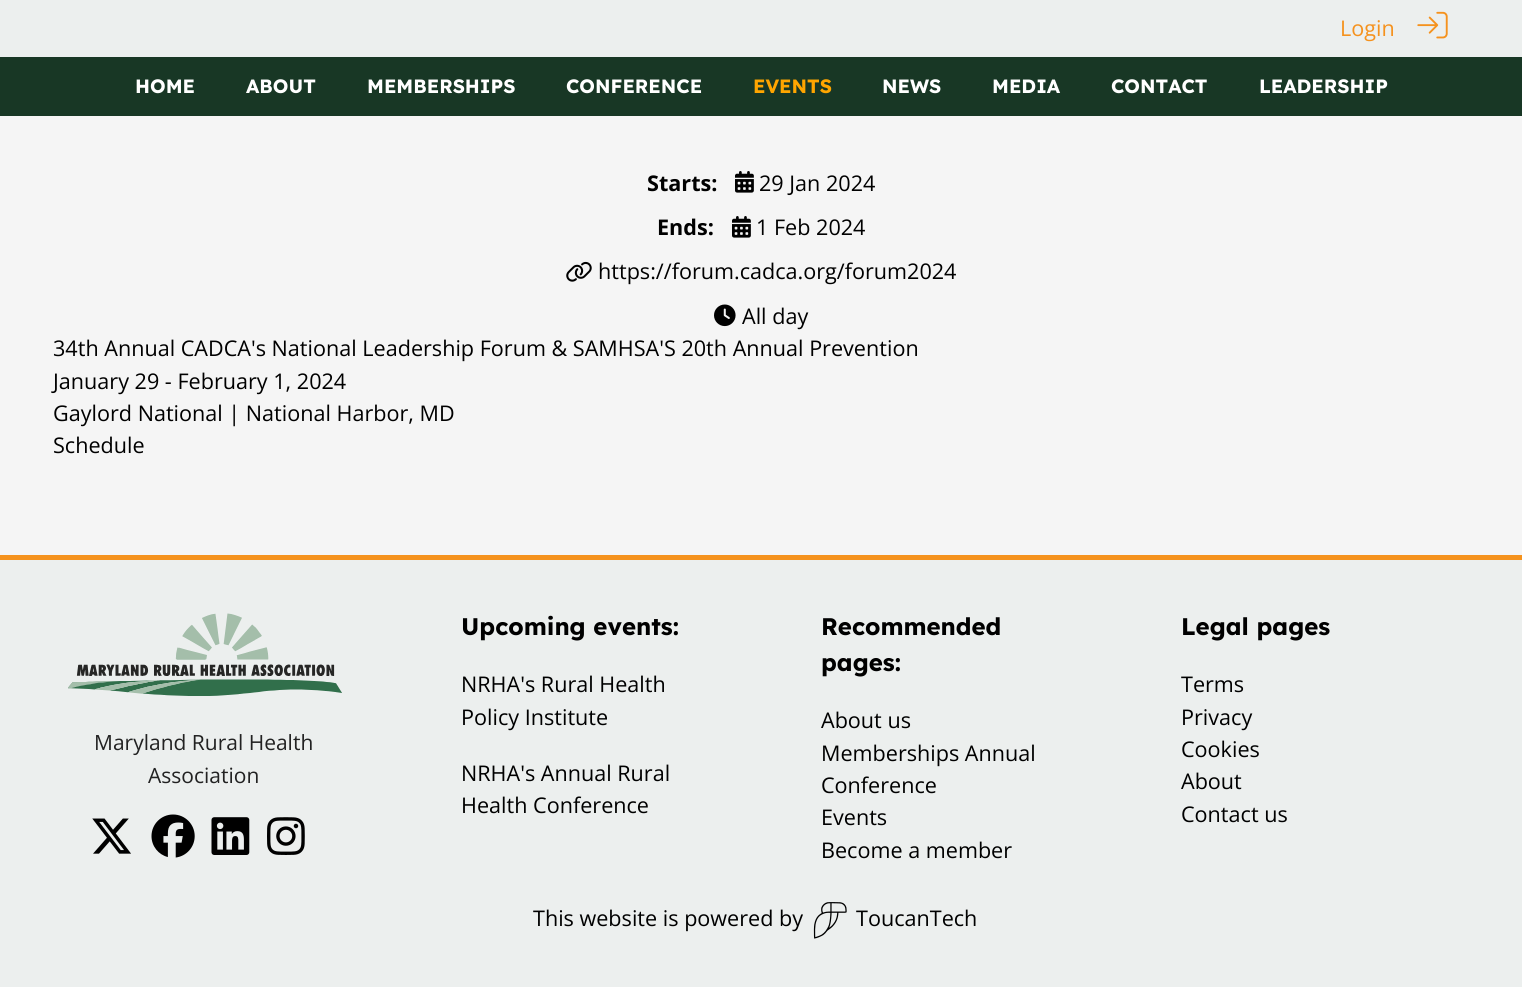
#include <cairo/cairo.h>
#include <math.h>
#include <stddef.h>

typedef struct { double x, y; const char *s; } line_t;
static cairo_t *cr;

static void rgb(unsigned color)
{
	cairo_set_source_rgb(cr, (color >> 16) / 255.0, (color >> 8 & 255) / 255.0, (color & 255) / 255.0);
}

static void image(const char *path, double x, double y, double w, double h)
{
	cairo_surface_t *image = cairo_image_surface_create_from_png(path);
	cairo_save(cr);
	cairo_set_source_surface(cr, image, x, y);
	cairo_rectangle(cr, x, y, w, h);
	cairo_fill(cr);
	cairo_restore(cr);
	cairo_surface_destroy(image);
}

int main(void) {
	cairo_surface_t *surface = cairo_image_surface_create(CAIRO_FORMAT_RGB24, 1522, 987);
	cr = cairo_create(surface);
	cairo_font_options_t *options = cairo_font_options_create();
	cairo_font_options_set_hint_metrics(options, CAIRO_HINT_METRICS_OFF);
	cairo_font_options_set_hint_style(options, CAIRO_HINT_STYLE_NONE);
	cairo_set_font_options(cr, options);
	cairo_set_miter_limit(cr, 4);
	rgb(0xecefee);
	cairo_paint(cr);
	image("img/1.png", 1417, 11, 31, 28);
	rgb(0x183725);
	cairo_rectangle(cr, 0, 57, 1522, 59);
	cairo_fill(cr);
	rgb(0xf5f5f5);
	cairo_rectangle(cr, 0, 116, 1522, 439);
	cairo_fill(cr);
	image("img/2.png", 735, 171, 19, 22);
	image("img/2.png", 732, 216, 19, 22);
	image("img/3.png", 566, 261, 26, 21);
	image("img/4.png", 714, 304, 22, 23);
	rgb(0xf5921d);
	cairo_rectangle(cr, 0, 555, 1522, 5);
	cairo_fill(cr);
	image("img/5.png", 68, 613, 274, 83);
	image("img/6.png", 92, 818, 39, 36);
	image("img/7.png", 151, 814, 44, 44);
	image("img/8.png", 211, 817, 39, 38);
	image("img/9.png", 267, 817, 38, 38);
	image("img/10.png", 813, 902, 34, 37);
	cairo_select_font_face(cr, "Open Sans", CAIRO_FONT_SLANT_NORMAL, CAIRO_FONT_WEIGHT_NORMAL);
	cairo_set_font_size(cr, 21.6);
	rgb(0xf5921e);
	cairo_move_to(cr, 1340, 36);
	cairo_show_text(cr, "Login");
	cairo_select_font_face(cr, "Lexend", CAIRO_FONT_SLANT_NORMAL, CAIRO_FONT_WEIGHT_BOLD);
	cairo_set_font_size(cr, 19.25);
	rgb(0xffffff);
	{
		static const line_t items[] = {
			{135, 93, "HOME"},
			{246, 93, "ABOUT"},
			{367, 93, "MEMBERSHIPS"},
			{566, 93, "CONFERENCE"},
		};
		for (size_t i = 0; i < sizeof items / sizeof *items; i++) {
			cairo_move_to(cr, items[i].x, items[i].y);
			cairo_show_text(cr, items[i].s);
		}
	}
	rgb(0xffa500);
	cairo_move_to(cr, 753, 93);
	cairo_show_text(cr, "EVENTS");
	rgb(0xffffff);
	{
		static const line_t items[] = {
			{882, 93, "NEWS"},
			{992, 93, "MEDIA"},
			{1111, 93, "CONTACT"},
			{1259, 93, "LEADERSHIP"},
		};
		for (size_t i = 0; i < sizeof items / sizeof *items; i++) {
			cairo_move_to(cr, items[i].x, items[i].y);
			cairo_show_text(cr, items[i].s);
		}
	}
	cairo_select_font_face(cr, "Open Sans", CAIRO_FONT_SLANT_NORMAL, CAIRO_FONT_WEIGHT_BOLD);
	cairo_set_font_size(cr, 21.6);
	rgb(0x000000);
	cairo_move_to(cr, 647, 191);
	cairo_show_text(cr, "Starts:");
	cairo_select_font_face(cr, "Open Sans", CAIRO_FONT_SLANT_NORMAL, CAIRO_FONT_WEIGHT_NORMAL);
	cairo_move_to(cr, 759, 191);
	cairo_show_text(cr, "29 Jan 2024");
	cairo_select_font_face(cr, "Open Sans", CAIRO_FONT_SLANT_NORMAL, CAIRO_FONT_WEIGHT_BOLD);
	cairo_move_to(cr, 657, 235);
	cairo_show_text(cr, "Ends:");
	cairo_select_font_face(cr, "Open Sans", CAIRO_FONT_SLANT_NORMAL, CAIRO_FONT_WEIGHT_NORMAL);
	{
		static const line_t items[] = {
			{756, 235, "1 Feb 2024"},
			{598, 279, "https://forum.cadca.org/forum2024"},
			{742, 324, "All day"},
			{53, 356, "34th Annual CADCA's National Leadership Forum & SAMHSA'S 20th Annual Prevention"},
			{53, 389, "January 29 - February 1, 2024"},
			{53, 421, "Gaylord National | National Harbor, MD"},
			{53, 453, "Schedule"},
		};
		for (size_t i = 0; i < sizeof items / sizeof *items; i++) {
			cairo_move_to(cr, items[i].x, items[i].y);
			cairo_show_text(cr, items[i].s);
		}
	}
	cairo_set_font_size(cr, 21);
	rgb(0x222222);
	cairo_move_to(cr, 94, 750);
	cairo_show_text(cr, "Maryland Rural Health");
	cairo_move_to(cr, 148, 783);
	cairo_show_text(cr, "Association");
	cairo_select_font_face(cr, "Lexend", CAIRO_FONT_SLANT_NORMAL, CAIRO_FONT_WEIGHT_BOLD);
	cairo_set_font_size(cr, 24);
	rgb(0x000000);
	cairo_move_to(cr, 461, 635);
	cairo_show_text(cr, "Upcoming events:");
	cairo_select_font_face(cr, "Open Sans", CAIRO_FONT_SLANT_NORMAL, CAIRO_FONT_WEIGHT_NORMAL);
	cairo_set_font_size(cr, 21.6);
	{
		static const line_t items[] = {
			{461, 692, "NRHA's Rural Health"},
			{461, 725, "Policy Institute"},
			{461, 781, "NRHA's Annual Rural"},
			{461, 813, "Health Conference"},
		};
		for (size_t i = 0; i < sizeof items / sizeof *items; i++) {
			cairo_move_to(cr, items[i].x, items[i].y);
			cairo_show_text(cr, items[i].s);
		}
	}
	cairo_select_font_face(cr, "Lexend", CAIRO_FONT_SLANT_NORMAL, CAIRO_FONT_WEIGHT_BOLD);
	cairo_set_font_size(cr, 24);
	cairo_move_to(cr, 821, 635);
	cairo_show_text(cr, "Recommended");
	cairo_move_to(cr, 821, 671);
	cairo_show_text(cr, "pages:");
	cairo_select_font_face(cr, "Open Sans", CAIRO_FONT_SLANT_NORMAL, CAIRO_FONT_WEIGHT_NORMAL);
	cairo_set_font_size(cr, 21.6);
	{
		static const line_t items[] = {
			{821, 728, "About us"},
			{821, 761, "Memberships Annual"},
			{821, 793, "Conference"},
			{821, 825, "Events"},
			{821, 858, "Become a member"},
		};
		for (size_t i = 0; i < sizeof items / sizeof *items; i++) {
			cairo_move_to(cr, items[i].x, items[i].y);
			cairo_show_text(cr, items[i].s);
		}
	}
	cairo_select_font_face(cr, "Lexend", CAIRO_FONT_SLANT_NORMAL, CAIRO_FONT_WEIGHT_BOLD);
	cairo_set_font_size(cr, 24);
	cairo_move_to(cr, 1181, 635);
	cairo_show_text(cr, "Legal pages");
	cairo_select_font_face(cr, "Open Sans", CAIRO_FONT_SLANT_NORMAL, CAIRO_FONT_WEIGHT_NORMAL);
	cairo_set_font_size(cr, 21.6);
	{
		static const line_t items[] = {
			{1181, 692, "Terms"},
			{1181, 725, "Privacy"},
			{1181, 757, "Cookies"},
			{1181, 789, "About"},
			{1181, 822, "Contact us"},
			{533, 926, "This website is powered by"},
			{856, 926, "ToucanTech"},
		};
		for (size_t i = 0; i < sizeof items / sizeof *items; i++) {
			cairo_move_to(cr, items[i].x, items[i].y);
			cairo_show_text(cr, items[i].s);
		}
	}
	cairo_surface_write_to_png(surface, "page.png");
	cairo_font_options_destroy(options);
	cairo_destroy(cr);
	cairo_surface_destroy(surface);
	return 0;
}
